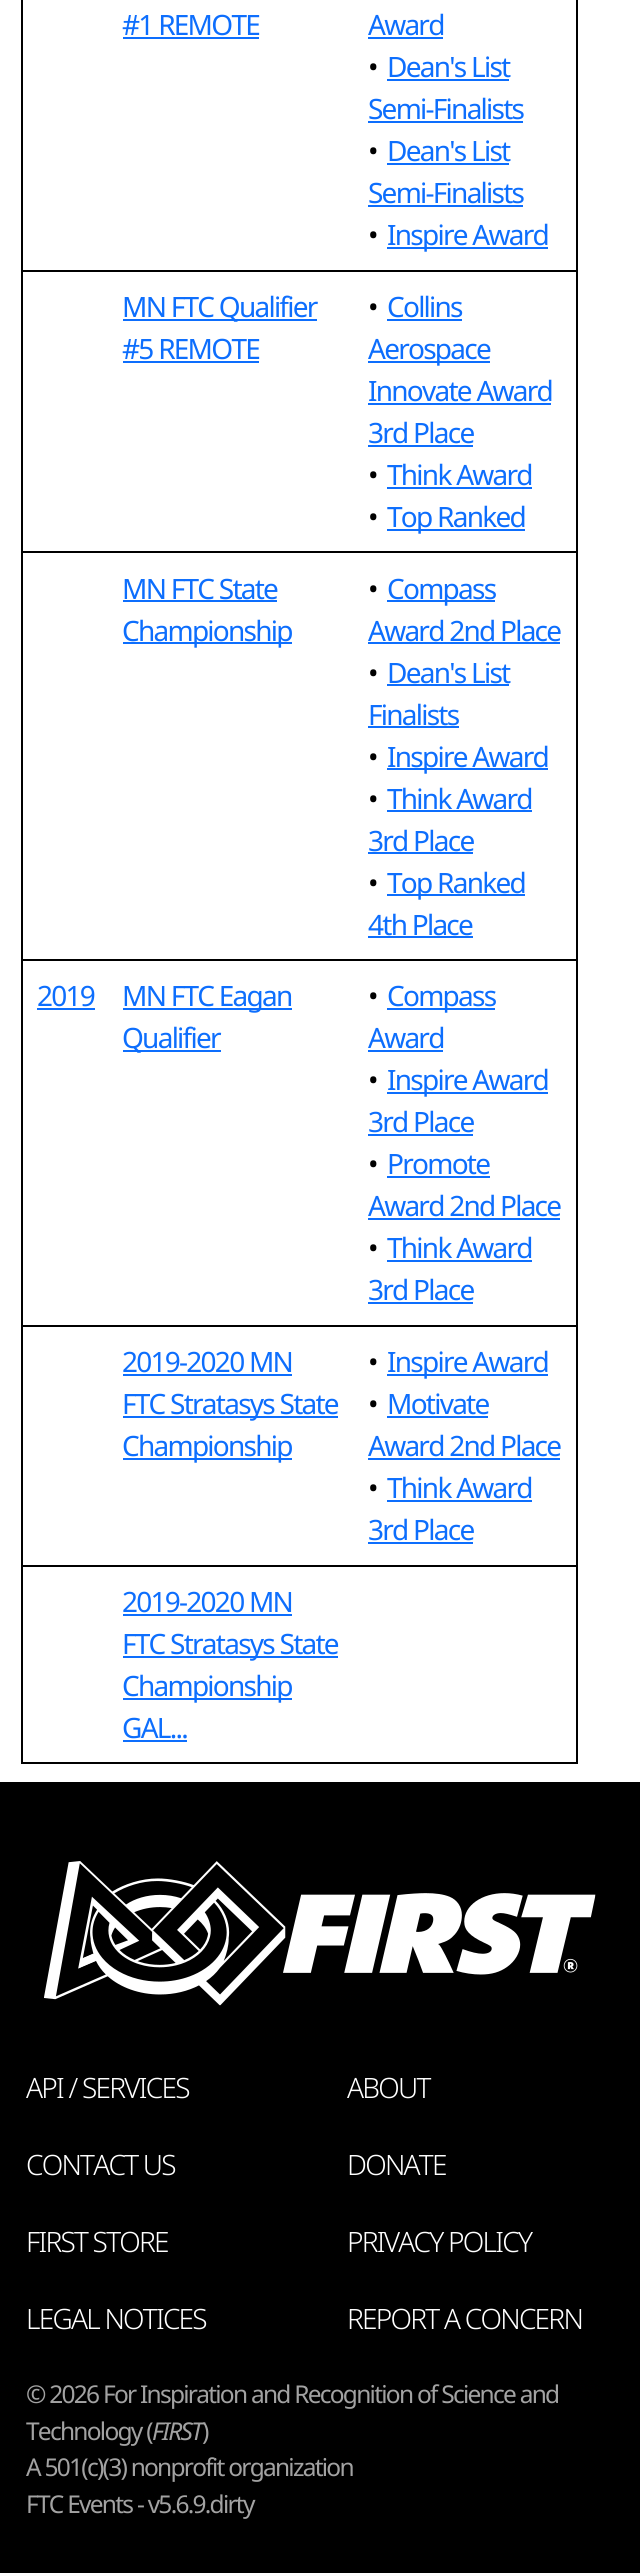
#include <cairo/cairo.h>
#include <math.h>
#include <stddef.h>

typedef struct { double x, y; const char *s; } line_t;
typedef struct { double x, y, w, h; unsigned color; } box_t;
static cairo_t *cr;

static void rgb(unsigned color)
{
	cairo_set_source_rgb(cr, (color >> 16) / 255.0, (color >> 8 & 255) / 255.0, (color & 255) / 255.0);
}

static void tracked(double x, double y, const char *s, double letter, double word)
{
	cairo_move_to(cr, x, y);
	while (*s) {
		char ch[5] = {0};
		int n = 0;
		do ch[n++] = *s++; while ((*s & 0xC0) == 0x80);
		cairo_show_text(cr, ch);
		cairo_rel_move_to(cr, letter + word * (*ch == ' '), 0);
	}
}

static void image(const char *path, double x, double y, double w, double h)
{
	cairo_surface_t *image = cairo_image_surface_create_from_png(path);
	cairo_save(cr);
	cairo_set_source_surface(cr, image, x, y);
	cairo_rectangle(cr, x, y, w, h);
	cairo_fill(cr);
	cairo_restore(cr);
	cairo_surface_destroy(image);
}

int main(void) {
	cairo_surface_t *surface = cairo_image_surface_create(CAIRO_FORMAT_RGB24, 640, 2573);
	cr = cairo_create(surface);
	cairo_font_options_t *options = cairo_font_options_create();
	cairo_font_options_set_hint_metrics(options, CAIRO_HINT_METRICS_OFF);
	cairo_font_options_set_hint_style(options, CAIRO_HINT_STYLE_NONE);
	cairo_set_font_options(cr, options);
	cairo_set_miter_limit(cr, 4);
	rgb(0xffffff);
	cairo_paint(cr);
	{
		static const box_t items[] = {
			{576, 0, 2, 1764, 0x000000},
			{21, 1762, 557, 2, 0x000000},
			{21, 0, 2, 1764, 0x000000},
			{123, 37, 136, 2, 0x0d6efd},
			{21, 270, 557, 2, 0x000000},
			{368, 37, 75, 2, 0x0d6efd},
			{387, 79, 122, 2, 0x0d6efd},
			{368, 121, 155, 2, 0x0d6efd},
			{387, 163, 122, 2, 0x0d6efd},
			{368, 205, 155, 2, 0x0d6efd},
			{387, 247, 161, 2, 0x0d6efd},
			{123, 319, 194, 2, 0x0d6efd},
			{123, 361, 136, 2, 0x0d6efd},
			{21, 551, 557, 2, 0x000000},
			{387, 319, 75, 2, 0x0d6efd},
			{368, 361, 122, 2, 0x0d6efd},
			{368, 403, 183, 2, 0x0d6efd},
			{368, 445, 105, 2, 0x0d6efd},
			{387, 487, 145, 2, 0x0d6efd},
			{387, 529, 138, 2, 0x0d6efd},
			{123, 600, 154, 2, 0x0d6efd},
			{123, 642, 169, 2, 0x0d6efd},
			{21, 959, 557, 2, 0x000000},
			{387, 600, 108, 2, 0x0d6efd},
			{368, 642, 192, 2, 0x0d6efd},
			{387, 684, 122, 2, 0x0d6efd},
			{368, 726, 91, 2, 0x0d6efd},
			{387, 768, 161, 2, 0x0d6efd},
			{387, 810, 145, 2, 0x0d6efd},
			{368, 852, 105, 2, 0x0d6efd},
			{387, 894, 138, 2, 0x0d6efd},
			{368, 936, 105, 2, 0x0d6efd},
			{37, 1008, 58, 2, 0x0d6efd},
			{123, 1008, 169, 2, 0x0d6efd},
			{123, 1050, 98, 2, 0x0d6efd},
			{21, 1325, 557, 2, 0x000000},
			{387, 1008, 108, 2, 0x0d6efd},
			{368, 1050, 75, 2, 0x0d6efd},
			{387, 1092, 161, 2, 0x0d6efd},
			{368, 1134, 105, 2, 0x0d6efd},
			{387, 1176, 103, 2, 0x0d6efd},
			{368, 1218, 192, 2, 0x0d6efd},
			{387, 1260, 145, 2, 0x0d6efd},
			{368, 1302, 105, 2, 0x0d6efd},
			{123, 1374, 169, 2, 0x0d6efd},
			{123, 1416, 215, 2, 0x0d6efd},
			{123, 1458, 169, 2, 0x0d6efd},
			{21, 1565, 557, 2, 0x000000},
			{387, 1374, 161, 2, 0x0d6efd},
			{387, 1416, 101, 2, 0x0d6efd},
			{368, 1458, 192, 2, 0x0d6efd},
			{387, 1500, 145, 2, 0x0d6efd},
			{368, 1542, 105, 2, 0x0d6efd},
			{123, 1614, 169, 2, 0x0d6efd},
			{123, 1656, 215, 2, 0x0d6efd},
			{123, 1698, 169, 2, 0x0d6efd},
			{123, 1740, 64, 2, 0x0d6efd},
			{0, 1782, 640, 791, 0x000000},
		};
		for (size_t i = 0; i < sizeof items / sizeof *items; i++) {
			rgb(items[i].color);
			cairo_rectangle(cr, items[i].x, items[i].y, items[i].w, items[i].h);
			cairo_fill(cr);
		}
	}
	image("img/1.png", 44, 1861, 552, 145);
	cairo_select_font_face(cr, "Noto Sans", CAIRO_FONT_SLANT_NORMAL, CAIRO_FONT_WEIGHT_NORMAL);
	cairo_set_font_size(cr, 28);
	rgb(0x0d6efd);
	tracked(122, 35, "#1 REMOTE", -1.75, 0);
	tracked(368, 35, "Award", -1.75, 0);
	rgb(0x000000);
	tracked(368, 77, "•", -1.75, 0);
	rgb(0x0d6efd);
	tracked(387, 77, "Dean's List", -1.75, 0);
	tracked(368, 119, "Semi-Finalists", -1.75, 0);
	rgb(0x000000);
	tracked(368, 161, "•", -1.75, 0);
	rgb(0x0d6efd);
	tracked(387, 161, "Dean's List", -1.75, 0);
	tracked(368, 203, "Semi-Finalists", -1.75, 0);
	rgb(0x000000);
	tracked(368, 245, "•", -1.75, 0);
	rgb(0x0d6efd);
	{
		static const line_t items[] = {
			{387, 245, "Inspire Award"},
			{122, 317, "MN FTC Qualifier"},
			{122, 359, "#5 REMOTE"},
		};
		for (size_t i = 0; i < sizeof items / sizeof *items; i++) {
			tracked(items[i].x, items[i].y, items[i].s, -1.75, 0);
		}
	}
	rgb(0x000000);
	tracked(368, 317, "•", -1.75, 0);
	rgb(0x0d6efd);
	{
		static const line_t items[] = {
			{387, 317, "Collins"},
			{368, 359, "Aerospace"},
			{368, 401, "Innovate Award"},
			{368, 443, "3rd Place"},
		};
		for (size_t i = 0; i < sizeof items / sizeof *items; i++) {
			tracked(items[i].x, items[i].y, items[i].s, -1.75, 0);
		}
	}
	rgb(0x000000);
	tracked(368, 485, "•", -1.75, 0);
	rgb(0x0d6efd);
	tracked(387, 485, "Think Award", -1.75, 0);
	rgb(0x000000);
	tracked(368, 527, "•", -1.75, 0);
	rgb(0x0d6efd);
	{
		static const line_t items[] = {
			{387, 527, "Top Ranked"},
			{122, 599, "MN FTC State"},
			{122, 641, "Championship"},
		};
		for (size_t i = 0; i < sizeof items / sizeof *items; i++) {
			tracked(items[i].x, items[i].y, items[i].s, -1.75, 0);
		}
	}
	rgb(0x000000);
	tracked(368, 599, "•", -1.75, 0);
	rgb(0x0d6efd);
	tracked(387, 599, "Compass", -1.75, 0);
	tracked(368, 641, "Award 2nd Place", -1.75, 0);
	rgb(0x000000);
	tracked(368, 683, "•", -1.75, 0);
	rgb(0x0d6efd);
	tracked(387, 683, "Dean's List", -1.75, 0);
	tracked(368, 725, "Finalists", -1.75, 0);
	rgb(0x000000);
	tracked(368, 767, "•", -1.75, 0);
	rgb(0x0d6efd);
	tracked(387, 767, "Inspire Award", -1.75, 0);
	rgb(0x000000);
	tracked(368, 809, "•", -1.75, 0);
	rgb(0x0d6efd);
	tracked(387, 809, "Think Award", -1.75, 0);
	tracked(368, 851, "3rd Place", -1.75, 0);
	rgb(0x000000);
	tracked(368, 893, "•", -1.75, 0);
	rgb(0x0d6efd);
	{
		static const line_t items[] = {
			{387, 893, "Top Ranked"},
			{368, 935, "4th Place"},
			{37, 1006, "2019"},
			{122, 1006, "MN FTC Eagan"},
			{122, 1048, "Qualifier"},
		};
		for (size_t i = 0; i < sizeof items / sizeof *items; i++) {
			tracked(items[i].x, items[i].y, items[i].s, -1.75, 0);
		}
	}
	rgb(0x000000);
	tracked(368, 1006, "•", -1.75, 0);
	rgb(0x0d6efd);
	tracked(387, 1006, "Compass", -1.75, 0);
	tracked(368, 1048, "Award", -1.75, 0);
	rgb(0x000000);
	tracked(368, 1090, "•", -1.75, 0);
	rgb(0x0d6efd);
	tracked(387, 1090, "Inspire Award", -1.75, 0);
	tracked(368, 1132, "3rd Place", -1.75, 0);
	rgb(0x000000);
	tracked(368, 1174, "•", -1.75, 0);
	rgb(0x0d6efd);
	tracked(387, 1174, "Promote", -1.75, 0);
	tracked(368, 1216, "Award 2nd Place", -1.75, 0);
	rgb(0x000000);
	tracked(368, 1258, "•", -1.75, 0);
	rgb(0x0d6efd);
	{
		static const line_t items[] = {
			{387, 1258, "Think Award"},
			{368, 1300, "3rd Place"},
			{122, 1372, "2019-2020 MN"},
			{122, 1414, "FTC Stratasys State"},
			{122, 1456, "Championship"},
		};
		for (size_t i = 0; i < sizeof items / sizeof *items; i++) {
			tracked(items[i].x, items[i].y, items[i].s, -1.75, 0);
		}
	}
	rgb(0x000000);
	tracked(368, 1372, "•", -1.75, 0);
	rgb(0x0d6efd);
	tracked(387, 1372, "Inspire Award", -1.75, 0);
	rgb(0x000000);
	tracked(368, 1414, "•", -1.75, 0);
	rgb(0x0d6efd);
	tracked(387, 1414, "Motivate", -1.75, 0);
	tracked(368, 1456, "Award 2nd Place", -1.75, 0);
	rgb(0x000000);
	tracked(368, 1498, "•", -1.75, 0);
	rgb(0x0d6efd);
	{
		static const line_t items[] = {
			{387, 1498, "Think Award"},
			{368, 1540, "3rd Place"},
			{122, 1612, "2019-2020 MN"},
			{122, 1654, "FTC Stratasys State"},
			{122, 1696, "Championship"},
			{122, 1738, "GAL..."},
		};
		for (size_t i = 0; i < sizeof items / sizeof *items; i++) {
			tracked(items[i].x, items[i].y, items[i].s, -1.75, 0);
		}
	}
	cairo_select_font_face(cr, "Noto Sans Light", CAIRO_FONT_SLANT_NORMAL, CAIRO_FONT_WEIGHT_NORMAL);
	rgb(0xffffff);
	{
		static const line_t items[] = {
			{26, 2098, "API / SERVICES"},
			{347, 2098, "ABOUT"},
			{26, 2175, "CONTACT US"},
			{347, 2175, "DONATE"},
			{26, 2252, "FIRST STORE"},
			{347, 2252, "PRIVACY POLICY"},
			{26, 2329, "LEGAL NOTICES"},
			{347, 2329, "REPORT A CONCERN"},
		};
		for (size_t i = 0; i < sizeof items / sizeof *items; i++) {
			tracked(items[i].x, items[i].y, items[i].s, -1.75, 0);
		}
	}
	cairo_select_font_face(cr, "Noto Sans", CAIRO_FONT_SLANT_NORMAL, CAIRO_FONT_WEIGHT_NORMAL);
	cairo_set_font_size(cr, 24.5);
	rgb(0xa2a2a2);
	tracked(26, 2403, "© 2026 For Inspiration and Recognition of Science and", -1.75, 0);
	tracked(26, 2440, "Technology (", -1.75, 0);
	cairo_select_font_face(cr, "Noto Sans", CAIRO_FONT_SLANT_ITALIC, CAIRO_FONT_WEIGHT_NORMAL);
	tracked(152, 2440, "FIRST", -1.75, 0);
	cairo_select_font_face(cr, "Noto Sans", CAIRO_FONT_SLANT_NORMAL, CAIRO_FONT_WEIGHT_NORMAL);
	{
		static const line_t items[] = {
			{202, 2440, ")"},
			{26, 2476, "A 501(c)(3) nonprofit organization"},
			{26, 2513, "FTC Events - v5.6.9.dirty"},
		};
		for (size_t i = 0; i < sizeof items / sizeof *items; i++) {
			tracked(items[i].x, items[i].y, items[i].s, -1.75, 0);
		}
	}
	cairo_surface_write_to_png(surface, "page.png");
	cairo_font_options_destroy(options);
	cairo_destroy(cr);
	cairo_surface_destroy(surface);
	return 0;
}
